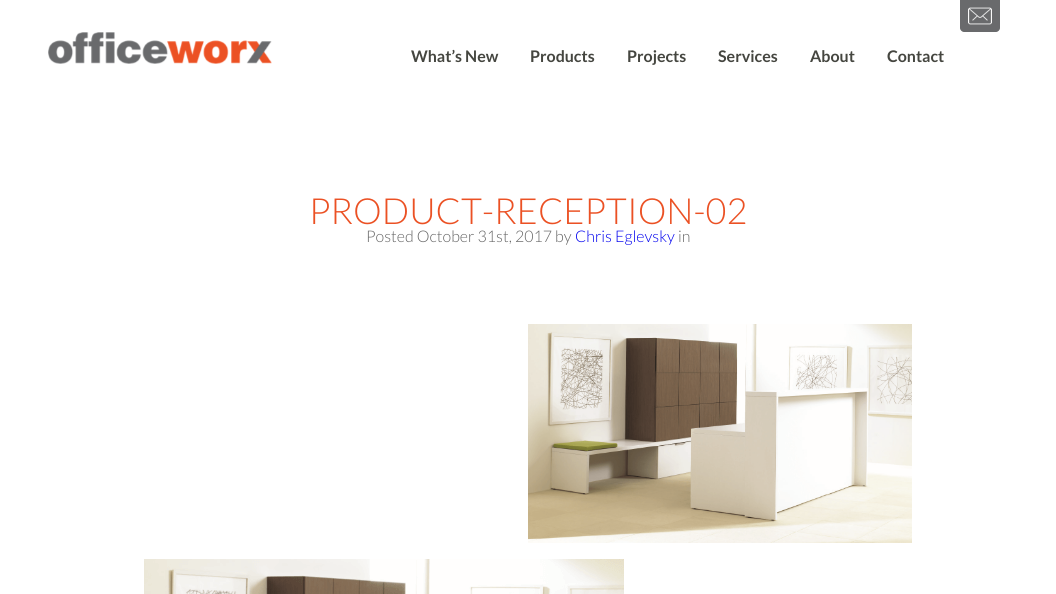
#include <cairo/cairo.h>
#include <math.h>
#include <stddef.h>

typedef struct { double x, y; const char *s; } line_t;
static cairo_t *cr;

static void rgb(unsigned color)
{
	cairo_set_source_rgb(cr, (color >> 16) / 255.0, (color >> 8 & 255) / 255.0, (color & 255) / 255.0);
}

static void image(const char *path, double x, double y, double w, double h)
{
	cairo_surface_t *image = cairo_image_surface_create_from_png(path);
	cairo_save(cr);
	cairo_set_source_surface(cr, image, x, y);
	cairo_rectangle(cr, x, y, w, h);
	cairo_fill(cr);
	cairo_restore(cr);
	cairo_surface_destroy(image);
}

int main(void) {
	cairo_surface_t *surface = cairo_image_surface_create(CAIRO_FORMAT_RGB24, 1056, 594);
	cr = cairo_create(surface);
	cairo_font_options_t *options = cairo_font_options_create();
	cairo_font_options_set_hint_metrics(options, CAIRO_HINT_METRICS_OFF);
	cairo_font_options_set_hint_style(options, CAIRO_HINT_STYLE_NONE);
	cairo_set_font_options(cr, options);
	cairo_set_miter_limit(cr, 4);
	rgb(0xffffff);
	cairo_paint(cr);
	rgb(0x696a6c);
	cairo_new_path(cr);
	cairo_move_to(cr, 960, 0);
	cairo_line_to(cr, 1000, 0);
	cairo_line_to(cr, 1000, 28);
	cairo_curve_to(cr, 1000, 30, 998, 32, 996, 32);
	cairo_line_to(cr, 964, 32);
	cairo_curve_to(cr, 962, 32, 960, 30, 960, 28);
	cairo_close_path(cr);
	cairo_fill(cr);
	image("img/1.png", 968, 7, 24, 18);
	image("img/2.png", 48, 32, 224, 32);
	image("img/3.png", 528, 324, 384, 219);
	image("img/4.png", 144, 559, 480, 35);
	cairo_select_font_face(cr, "Lato", CAIRO_FONT_SLANT_NORMAL, CAIRO_FONT_WEIGHT_BOLD);
	cairo_set_font_size(cr, 16);
	rgb(0x454640);
	{
		static const line_t items[] = {
			{411, 62, "What’s New"},
			{530, 62, "Products"},
			{627, 62, "Projects"},
			{718, 62, "Services"},
			{810, 62, "About"},
			{887, 62, "Contact"},
		};
		for (size_t i = 0; i < sizeof items / sizeof *items; i++) {
			cairo_move_to(cr, items[i].x, items[i].y);
			cairo_show_text(cr, items[i].s);
		}
	}
	cairo_select_font_face(cr, "Lato Light", CAIRO_FONT_SLANT_NORMAL, CAIRO_FONT_WEIGHT_NORMAL);
	cairo_set_font_size(cr, 36);
	rgb(0xeb5124);
	cairo_move_to(cr, 309, 224);
	cairo_show_text(cr, "PRODUCT-RECEPTION-02");
	cairo_set_font_size(cr, 16);
	rgb(0x666666);
	cairo_move_to(cr, 366, 242);
	cairo_show_text(cr, "Posted October 31st, 2017 by");
	rgb(0x0000ee);
	cairo_move_to(cr, 575, 242);
	cairo_show_text(cr, "Chris Eglevsky");
	rgb(0x666666);
	cairo_move_to(cr, 678, 242);
	cairo_show_text(cr, "in");
	cairo_surface_write_to_png(surface, "page.png");
	cairo_font_options_destroy(options);
	cairo_destroy(cr);
	cairo_surface_destroy(surface);
	return 0;
}
